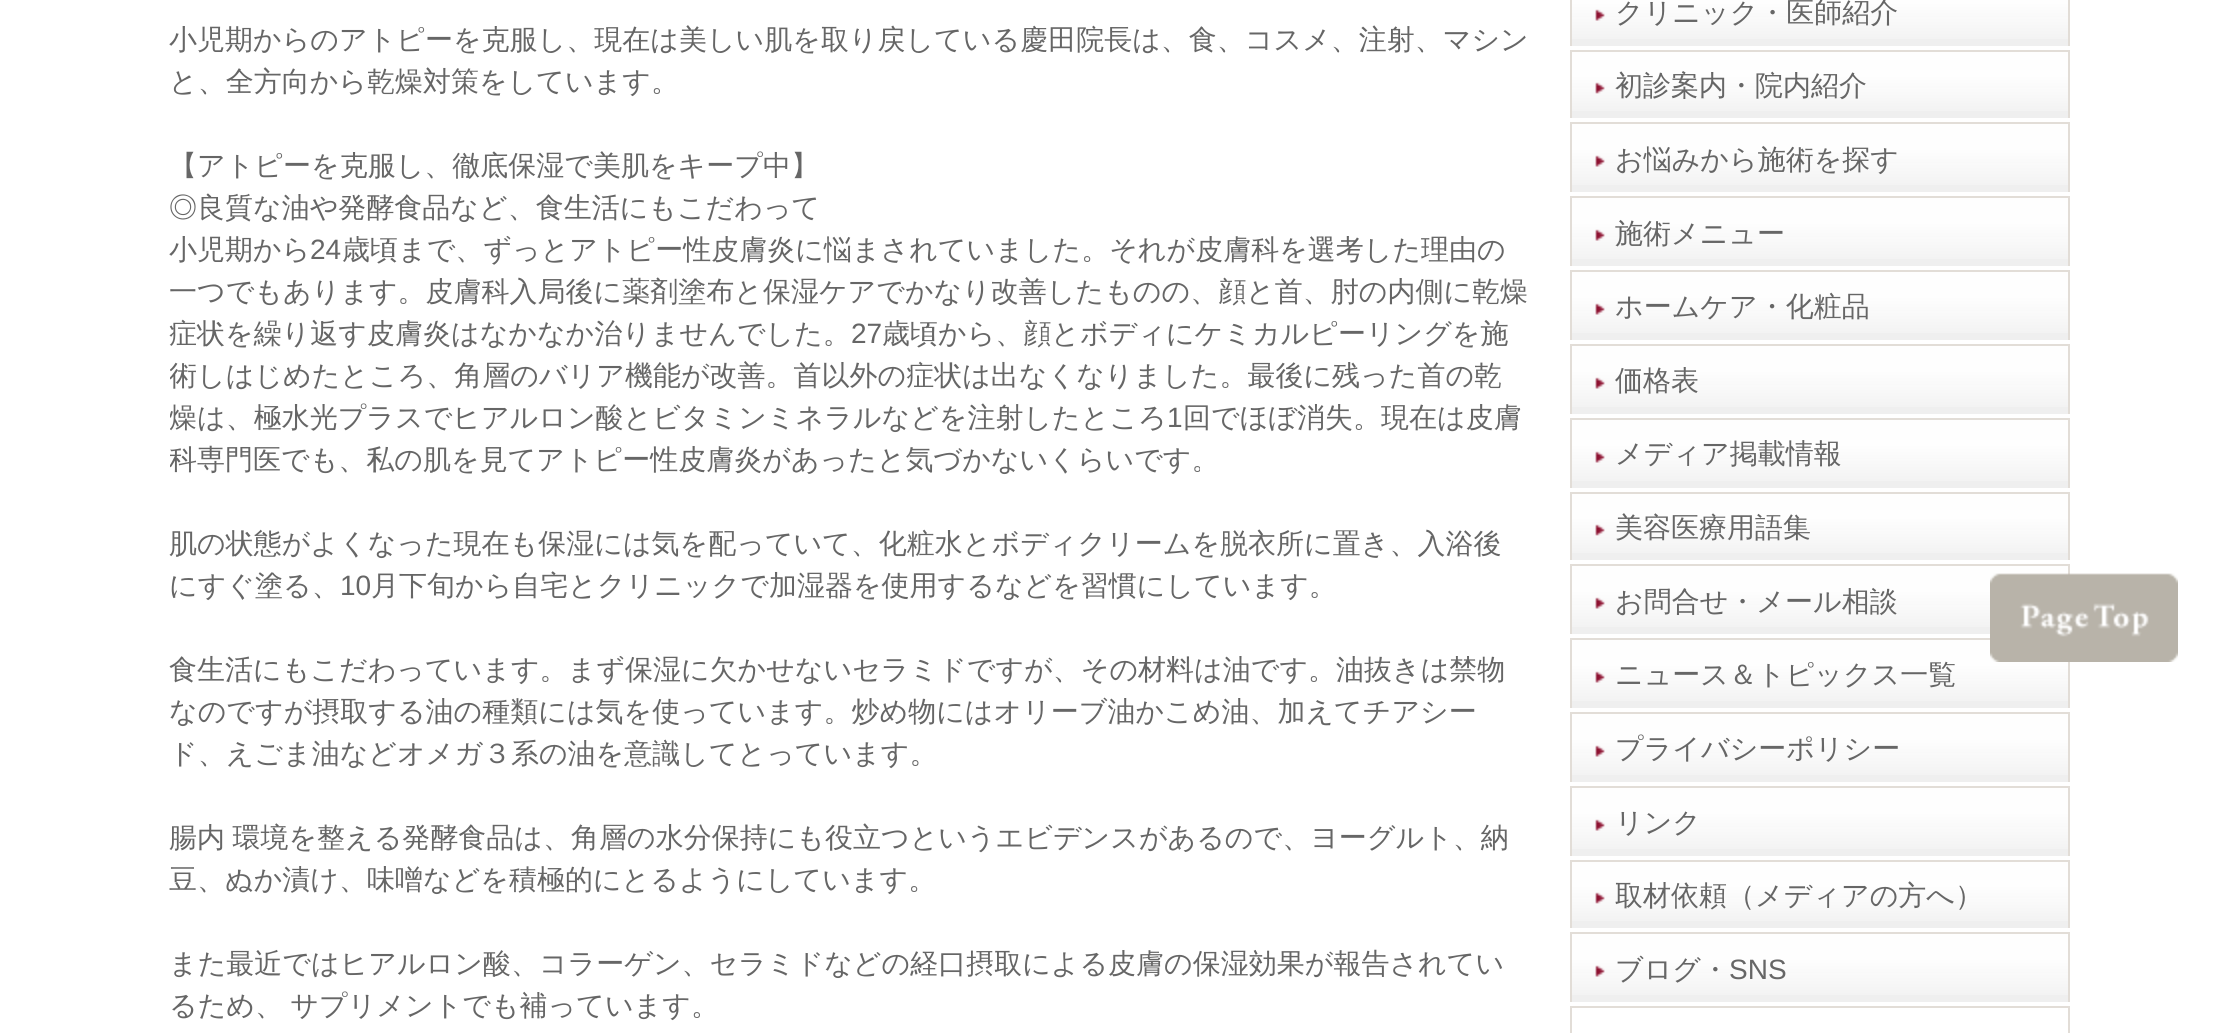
#include <cairo/cairo.h>
#include <math.h>
#include <stddef.h>

typedef struct { double x, y; const char *s; } line_t;
typedef struct { double x, y, w, h; unsigned color; } box_t;
static cairo_t *cr;

static void rgb(unsigned color)
{
	cairo_set_source_rgb(cr, (color >> 16) / 255.0, (color >> 8 & 255) / 255.0, (color & 255) / 255.0);
}

static void tracked(double x, double y, const char *s, double letter, double word)
{
	cairo_move_to(cr, x, y);
	while (*s) {
		char ch[5] = {0};
		int n = 0;
		do ch[n++] = *s++; while ((*s & 0xC0) == 0x80);
		cairo_show_text(cr, ch);
		cairo_rel_move_to(cr, letter + word * (*ch == ' '), 0);
	}
}

static void image(const char *path, double x, double y, double w, double h)
{
	cairo_surface_t *image = cairo_image_surface_create_from_png(path);
	cairo_save(cr);
	cairo_set_source_surface(cr, image, x, y);
	cairo_rectangle(cr, x, y, w, h);
	cairo_fill(cr);
	cairo_restore(cr);
	cairo_surface_destroy(image);
}

int main(void) {
	cairo_surface_t *surface = cairo_image_surface_create(CAIRO_FORMAT_RGB24, 2237, 1033);
	cr = cairo_create(surface);
	cairo_font_options_t *options = cairo_font_options_create();
	cairo_font_options_set_hint_metrics(options, CAIRO_HINT_METRICS_OFF);
	cairo_font_options_set_hint_style(options, CAIRO_HINT_STYLE_NONE);
	cairo_set_font_options(cr, options);
	cairo_set_miter_limit(cr, 4);
	rgb(0xffffff);
	cairo_paint(cr);
	rgb(0xefefef);
	cairo_rectangle(cr, 1572, 2, 496, 44);
	cairo_fill(cr);
	image("img/1.png", 1572, 0, 496, 39);
	{
		static const box_t items[] = {
			{2068, 0, 2, 46, 0xe2ddd7},
			{1570, 0, 2, 46, 0xe2ddd7},
			{1572, 75, 496, 43, 0xefefef},
		};
		for (size_t i = 0; i < sizeof items / sizeof *items; i++) {
			rgb(items[i].color);
			cairo_rectangle(cr, items[i].x, items[i].y, items[i].w, items[i].h);
			cairo_fill(cr);
		}
	}
	image("img/2.png", 1572, 52, 496, 59);
	{
		static const box_t items[] = {
			{1570, 50, 500, 2, 0xe2ddd7},
			{2068, 50, 2, 68, 0xe2ddd7},
			{1570, 50, 2, 68, 0xe2ddd7},
			{1572, 148, 496, 44, 0xefefef},
		};
		for (size_t i = 0; i < sizeof items / sizeof *items; i++) {
			rgb(items[i].color);
			cairo_rectangle(cr, items[i].x, items[i].y, items[i].w, items[i].h);
			cairo_fill(cr);
		}
	}
	image("img/3.png", 1572, 124, 496, 61);
	{
		static const box_t items[] = {
			{1570, 122, 500, 2, 0xe2ddd7},
			{2068, 122, 2, 70, 0xe2ddd7},
			{1570, 122, 2, 70, 0xe2ddd7},
			{1572, 222, 496, 44, 0xefefef},
		};
		for (size_t i = 0; i < sizeof items / sizeof *items; i++) {
			rgb(items[i].color);
			cairo_rectangle(cr, items[i].x, items[i].y, items[i].w, items[i].h);
			cairo_fill(cr);
		}
	}
	image("img/3.png", 1572, 198, 496, 61);
	{
		static const box_t items[] = {
			{1570, 196, 500, 2, 0xe2ddd7},
			{2068, 196, 2, 70, 0xe2ddd7},
			{1570, 196, 2, 70, 0xe2ddd7},
			{1572, 296, 496, 44, 0xefefef},
		};
		for (size_t i = 0; i < sizeof items / sizeof *items; i++) {
			rgb(items[i].color);
			cairo_rectangle(cr, items[i].x, items[i].y, items[i].w, items[i].h);
			cairo_fill(cr);
		}
	}
	image("img/3.png", 1572, 272, 496, 61);
	{
		static const box_t items[] = {
			{1570, 270, 500, 2, 0xe2ddd7},
			{2068, 270, 2, 70, 0xe2ddd7},
			{1570, 270, 2, 70, 0xe2ddd7},
			{1572, 370, 496, 44, 0xefefef},
		};
		for (size_t i = 0; i < sizeof items / sizeof *items; i++) {
			rgb(items[i].color);
			cairo_rectangle(cr, items[i].x, items[i].y, items[i].w, items[i].h);
			cairo_fill(cr);
		}
	}
	image("img/3.png", 1572, 346, 496, 61);
	{
		static const box_t items[] = {
			{1570, 344, 500, 2, 0xe2ddd7},
			{2068, 344, 2, 70, 0xe2ddd7},
			{1570, 344, 2, 70, 0xe2ddd7},
			{1572, 444, 496, 44, 0xefefef},
		};
		for (size_t i = 0; i < sizeof items / sizeof *items; i++) {
			rgb(items[i].color);
			cairo_rectangle(cr, items[i].x, items[i].y, items[i].w, items[i].h);
			cairo_fill(cr);
		}
	}
	image("img/3.png", 1572, 420, 496, 61);
	{
		static const box_t items[] = {
			{1570, 418, 500, 2, 0xe2ddd7},
			{2068, 418, 2, 70, 0xe2ddd7},
			{1570, 418, 2, 70, 0xe2ddd7},
			{1572, 517, 496, 43, 0xefefef},
		};
		for (size_t i = 0; i < sizeof items / sizeof *items; i++) {
			rgb(items[i].color);
			cairo_rectangle(cr, items[i].x, items[i].y, items[i].w, items[i].h);
			cairo_fill(cr);
		}
	}
	image("img/2.png", 1572, 494, 496, 59);
	{
		static const box_t items[] = {
			{1570, 492, 500, 2, 0xe2ddd7},
			{2068, 492, 2, 68, 0xe2ddd7},
			{1570, 492, 2, 68, 0xe2ddd7},
			{1572, 590, 418, 44, 0xefefef},
		};
		for (size_t i = 0; i < sizeof items / sizeof *items; i++) {
			rgb(items[i].color);
			cairo_rectangle(cr, items[i].x, items[i].y, items[i].w, items[i].h);
			cairo_fill(cr);
		}
	}
	image("img/3.png", 1572, 566, 496, 61);
	{
		static const box_t items[] = {
			{1570, 564, 500, 2, 0xe2ddd7},
			{2068, 564, 2, 11, 0xe2ddd7},
			{1570, 564, 2, 70, 0xe2ddd7},
			{1572, 664, 496, 44, 0xefefef},
		};
		for (size_t i = 0; i < sizeof items / sizeof *items; i++) {
			rgb(items[i].color);
			cairo_rectangle(cr, items[i].x, items[i].y, items[i].w, items[i].h);
			cairo_fill(cr);
		}
	}
	image("img/3.png", 1572, 640, 496, 61);
	{
		static const box_t items[] = {
			{1570, 638, 420, 2, 0xe2ddd7},
			{2068, 662, 2, 46, 0xe2ddd7},
			{1570, 638, 2, 70, 0xe2ddd7},
			{1572, 738, 496, 44, 0xefefef},
		};
		for (size_t i = 0; i < sizeof items / sizeof *items; i++) {
			rgb(items[i].color);
			cairo_rectangle(cr, items[i].x, items[i].y, items[i].w, items[i].h);
			cairo_fill(cr);
		}
	}
	image("img/3.png", 1572, 714, 496, 61);
	{
		static const box_t items[] = {
			{1570, 712, 500, 2, 0xe2ddd7},
			{2068, 712, 2, 70, 0xe2ddd7},
			{1570, 712, 2, 70, 0xe2ddd7},
			{1572, 812, 496, 44, 0xefefef},
		};
		for (size_t i = 0; i < sizeof items / sizeof *items; i++) {
			rgb(items[i].color);
			cairo_rectangle(cr, items[i].x, items[i].y, items[i].w, items[i].h);
			cairo_fill(cr);
		}
	}
	image("img/3.png", 1572, 788, 496, 61);
	{
		static const box_t items[] = {
			{1570, 786, 500, 2, 0xe2ddd7},
			{2068, 786, 2, 70, 0xe2ddd7},
			{1570, 786, 2, 70, 0xe2ddd7},
			{1572, 885, 496, 43, 0xefefef},
		};
		for (size_t i = 0; i < sizeof items / sizeof *items; i++) {
			rgb(items[i].color);
			cairo_rectangle(cr, items[i].x, items[i].y, items[i].w, items[i].h);
			cairo_fill(cr);
		}
	}
	image("img/2.png", 1572, 862, 496, 59);
	{
		static const box_t items[] = {
			{1570, 860, 500, 2, 0xe2ddd7},
			{2068, 860, 2, 68, 0xe2ddd7},
			{1570, 860, 2, 68, 0xe2ddd7},
			{1572, 958, 496, 44, 0xefefef},
		};
		for (size_t i = 0; i < sizeof items / sizeof *items; i++) {
			rgb(items[i].color);
			cairo_rectangle(cr, items[i].x, items[i].y, items[i].w, items[i].h);
			cairo_fill(cr);
		}
	}
	image("img/3.png", 1572, 934, 496, 61);
	{
		static const box_t items[] = {
			{1570, 932, 500, 2, 0xe2ddd7},
			{2068, 932, 2, 70, 0xe2ddd7},
			{1570, 932, 2, 70, 0xe2ddd7},
			{1570, 1006, 500, 2, 0xe2ddd7},
			{2068, 1006, 2, 27, 0xe2ddd7},
			{1570, 1006, 2, 27, 0xe2ddd7},
		};
		for (size_t i = 0; i < sizeof items / sizeof *items; i++) {
			rgb(items[i].color);
			cairo_rectangle(cr, items[i].x, items[i].y, items[i].w, items[i].h);
			cairo_fill(cr);
		}
	}
	image("img/4.png", 1990, 573, 188, 89);
	cairo_select_font_face(cr, "WenQuanYi Zen Hei Medium", CAIRO_FONT_SLANT_NORMAL, CAIRO_FONT_WEIGHT_NORMAL);
	cairo_set_font_size(cr, 28);
	rgb(0x666666);
	{
		static const line_t items[] = {
			{169, 49, "小児期からのアトピーを克服し、現在は美しい肌を取り戻している慶田院長は、食、コスメ、注射、マシン"},
			{169, 91, "と、全方向から乾燥対策をしています。"},
			{169, 175, "【アトピーを克服し、徹底保湿で美肌をキープ中】"},
			{169, 217, "◎良質な油や発酵食品など、食生活にもこだわって"},
			{169, 259, "小児期から"},
		};
		for (size_t i = 0; i < sizeof items / sizeof *items; i++) {
			cairo_move_to(cr, items[i].x, items[i].y);
			cairo_show_text(cr, items[i].s);
		}
	}
	cairo_select_font_face(cr, "Liberation Sans", CAIRO_FONT_SLANT_NORMAL, CAIRO_FONT_WEIGHT_NORMAL);
	cairo_move_to(cr, 310, 259);
	cairo_show_text(cr, "24");
	cairo_select_font_face(cr, "WenQuanYi Zen Hei Medium", CAIRO_FONT_SLANT_NORMAL, CAIRO_FONT_WEIGHT_NORMAL);
	{
		static const line_t items[] = {
			{342, 259, "歳頃まで、ずっとアトピー性皮膚炎に悩まされていました。それが皮膚科を選考した理由の"},
			{169, 301, "一つでもあります。皮膚科入局後に薬剤塗布と保湿ケアでかなり改善したものの、顔と首、肘の内側に乾燥"},
			{169, 343, "症状を繰り返す皮膚炎はなかなか治りませんでした。"},
		};
		for (size_t i = 0; i < sizeof items / sizeof *items; i++) {
			cairo_move_to(cr, items[i].x, items[i].y);
			cairo_show_text(cr, items[i].s);
		}
	}
	cairo_select_font_face(cr, "Liberation Sans", CAIRO_FONT_SLANT_NORMAL, CAIRO_FONT_WEIGHT_NORMAL);
	cairo_move_to(cr, 851, 343);
	cairo_show_text(cr, "27");
	cairo_select_font_face(cr, "WenQuanYi Zen Hei Medium", CAIRO_FONT_SLANT_NORMAL, CAIRO_FONT_WEIGHT_NORMAL);
	cairo_move_to(cr, 882, 343);
	cairo_show_text(cr, "歳頃から、顔とボディにケミカルピーリングを施");
	cairo_save(cr);
	cairo_rectangle(cr, 170, 0, 1360, 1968);
	cairo_clip(cr);
	cairo_move_to(cr, 169, 385);
	cairo_show_text(cr, "術しはじめたところ、角層のバリア機能が改善。首以外の症状は出なくなりました。最後に残った首の乾");
	cairo_move_to(cr, 169, 427);
	cairo_show_text(cr, "燥は、極水光プラスでヒアルロン酸とビタミンミネラルなどを注射したところ");
	cairo_restore(cr);
	cairo_select_font_face(cr, "Liberation Sans", CAIRO_FONT_SLANT_NORMAL, CAIRO_FONT_WEIGHT_NORMAL);
	cairo_move_to(cr, 1167, 427);
	cairo_show_text(cr, "1");
	cairo_select_font_face(cr, "WenQuanYi Zen Hei Medium", CAIRO_FONT_SLANT_NORMAL, CAIRO_FONT_WEIGHT_NORMAL);
	cairo_move_to(cr, 1183, 427);
	cairo_show_text(cr, "回でほぼ消失。現在は皮膚");
	cairo_save(cr);
	cairo_rectangle(cr, 170, 0, 1360, 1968);
	cairo_clip(cr);
	cairo_move_to(cr, 169, 469);
	cairo_show_text(cr, "科専門医でも、私の肌を見てアトピー性皮膚炎があったと気づかないくらいです。");
	cairo_restore(cr);
	cairo_move_to(cr, 169, 553);
	cairo_show_text(cr, "肌の状態がよくなった現在も保湿には気を配っていて、化粧水とボディクリームを脱衣所に置き、入浴後");
	cairo_move_to(cr, 169, 595);
	cairo_show_text(cr, "にすぐ塗る、");
	cairo_select_font_face(cr, "Liberation Sans", CAIRO_FONT_SLANT_NORMAL, CAIRO_FONT_WEIGHT_NORMAL);
	cairo_move_to(cr, 340, 595);
	cairo_show_text(cr, "10");
	cairo_select_font_face(cr, "WenQuanYi Zen Hei Medium", CAIRO_FONT_SLANT_NORMAL, CAIRO_FONT_WEIGHT_NORMAL);
	{
		static const line_t items[] = {
			{371, 595, "月下旬から自宅とクリニックで加湿器を使用するなどを習慣にしています。"},
			{169, 679, "食生活にもこだわっています。まず保湿に欠かせないセラミドですが、その材料は油です。油抜きは禁物"},
			{169, 721, "なのですが摂取する油の種類には気を使っています。炒め物にはオリーブ油かこめ油、加えてチアシー"},
			{169, 763, "ド、えごま油などオメガ３系の油を意識してとっています。"},
		};
		for (size_t i = 0; i < sizeof items / sizeof *items; i++) {
			cairo_move_to(cr, items[i].x, items[i].y);
			cairo_show_text(cr, items[i].s);
		}
	}
	tracked(169, 847, "腸内 環境を整える発酵食品は、角層の水分保持にも役立つというエビデンスがあるので、ヨーグルト、納", 0, -1);
	cairo_move_to(cr, 169, 889);
	cairo_show_text(cr, "豆、ぬか漬け、味噌などを積極的にとるようにしています。");
	cairo_move_to(cr, 169, 973);
	cairo_show_text(cr, "また最近ではヒアルロン酸、コラーゲン、セラミドなどの経口摂取による皮膚の保湿効果が報告されてい");
	tracked(169, 1015, "るため、 サプリメントでも補っています。", 0, -1);
	{
		static const line_t items[] = {
			{1615, 22, "クリニック・医師紹介"},
			{1615, 95, "初診案内・院内紹介"},
			{1615, 169, "お悩みから施術を探す"},
			{1615, 243, "施術メニュー"},
			{1615, 316, "ホームケア・化粧品"},
			{1615, 390, "価格表"},
			{1615, 463, "メディア掲載情報"},
			{1615, 537, "美容医療用語集"},
			{1615, 611, "お問合せ・メール相談"},
			{1615, 684, "ニュース＆トピックス一覧"},
			{1615, 758, "プライバシーポリシー"},
			{1615, 832, "リンク"},
			{1615, 905, "取材依頼（メディアの方へ）"},
			{1615, 979, "ブログ・"},
		};
		for (size_t i = 0; i < sizeof items / sizeof *items; i++) {
			cairo_move_to(cr, items[i].x, items[i].y);
			cairo_show_text(cr, items[i].s);
		}
	}
	cairo_select_font_face(cr, "Liberation Sans", CAIRO_FONT_SLANT_NORMAL, CAIRO_FONT_WEIGHT_NORMAL);
	cairo_move_to(cr, 1729, 979);
	cairo_show_text(cr, "SNS");
	cairo_surface_write_to_png(surface, "page.png");
	cairo_font_options_destroy(options);
	cairo_destroy(cr);
	cairo_surface_destroy(surface);
	return 0;
}
